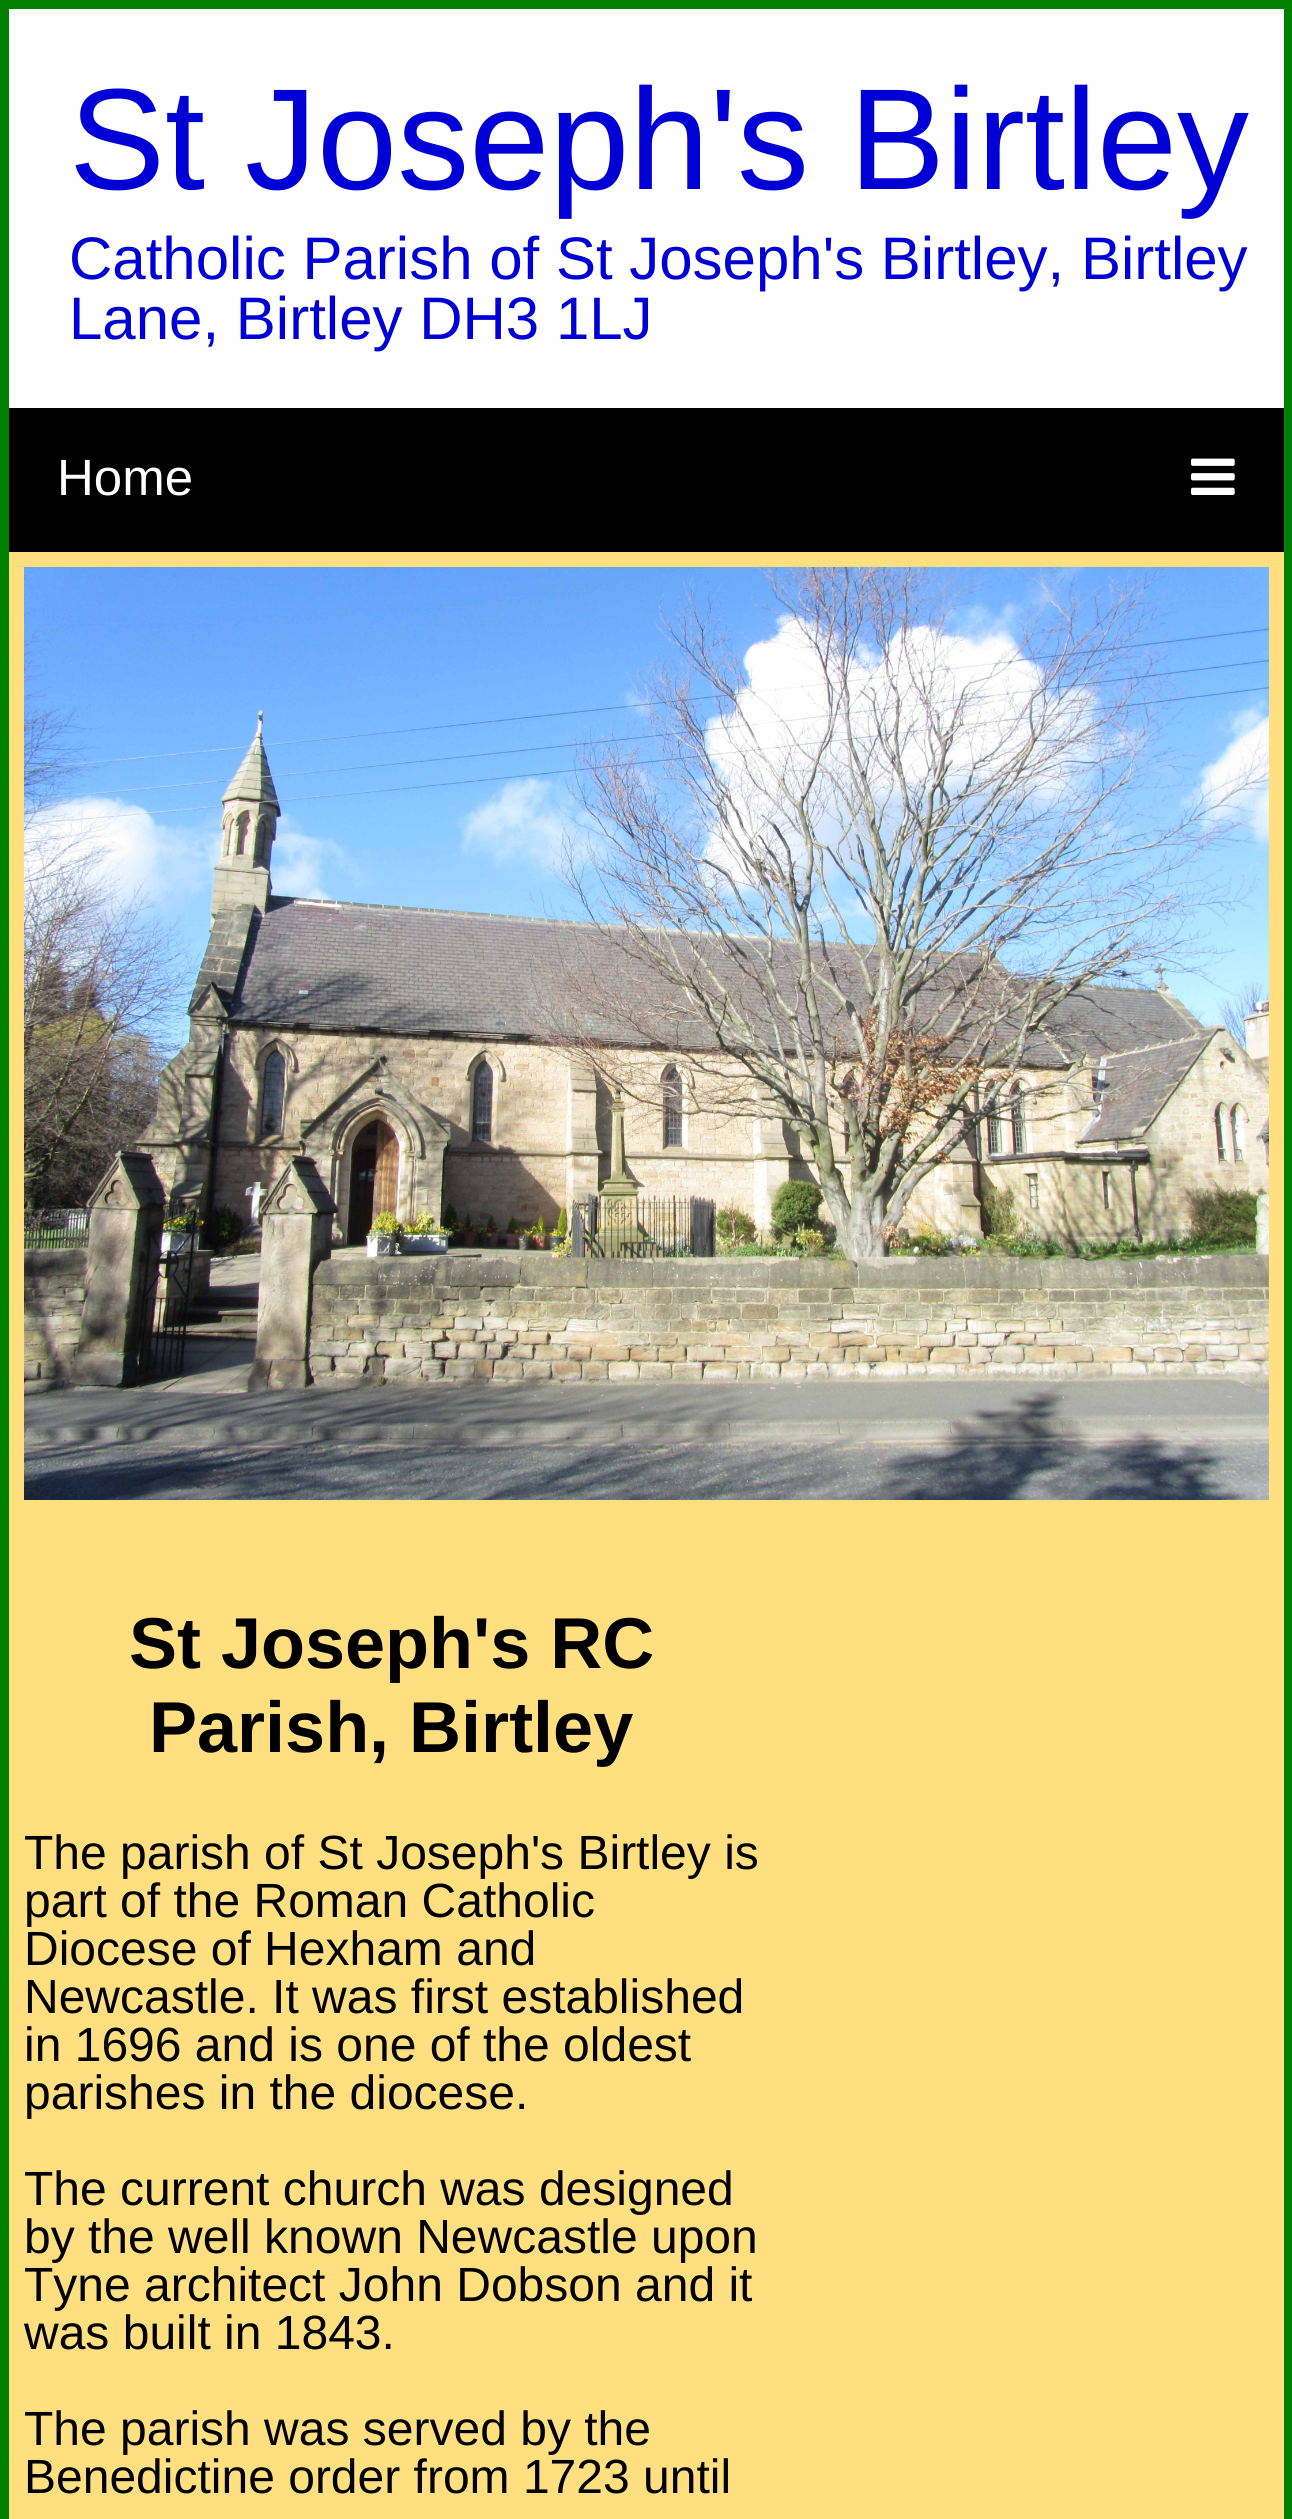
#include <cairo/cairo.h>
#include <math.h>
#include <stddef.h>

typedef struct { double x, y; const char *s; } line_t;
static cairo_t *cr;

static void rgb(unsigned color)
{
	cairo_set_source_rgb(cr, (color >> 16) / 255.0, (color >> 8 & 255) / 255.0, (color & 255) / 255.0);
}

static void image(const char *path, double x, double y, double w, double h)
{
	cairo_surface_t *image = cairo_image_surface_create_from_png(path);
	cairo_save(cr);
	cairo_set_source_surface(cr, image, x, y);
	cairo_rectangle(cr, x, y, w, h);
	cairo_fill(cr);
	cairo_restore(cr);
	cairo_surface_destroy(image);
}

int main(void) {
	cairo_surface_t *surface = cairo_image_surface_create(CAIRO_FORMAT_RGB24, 1292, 2519);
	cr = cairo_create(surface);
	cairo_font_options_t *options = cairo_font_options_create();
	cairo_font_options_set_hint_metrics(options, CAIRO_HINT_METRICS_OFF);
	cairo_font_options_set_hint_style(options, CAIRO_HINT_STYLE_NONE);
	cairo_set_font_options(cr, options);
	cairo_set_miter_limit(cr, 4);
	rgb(0xffdf80);
	cairo_paint(cr);
	cairo_rectangle(cr, 4.5, 4.5, 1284, 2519);
	rgb(0x008000);
	cairo_set_line_width(cr, 9);
	cairo_stroke(cr);
	rgb(0xffffff);
	cairo_rectangle(cr, 9, 9, 1275, 399);
	cairo_fill(cr);
	rgb(0x000000);
	cairo_rectangle(cr, 9, 408, 1275, 144);
	cairo_fill(cr);
	image("img/1.png", 1191, 458, 44, 37);
	image("img/2.png", 24, 567, 1245, 933);
	cairo_select_font_face(cr, "Liberation Sans", CAIRO_FONT_SLANT_NORMAL, CAIRO_FONT_WEIGHT_NORMAL);
	cairo_set_font_size(cr, 144);
	rgb(0x0000d6);
	cairo_move_to(cr, 69, 189);
	cairo_show_text(cr, "St Joseph's Birtley");
	cairo_set_font_size(cr, 60);
	cairo_move_to(cr, 69, 279);
	cairo_show_text(cr, "Catholic Parish of St Joseph's Birtley, Birtley");
	cairo_move_to(cr, 69, 339);
	cairo_show_text(cr, "Lane, Birtley DH3 1LJ");
	cairo_set_font_size(cr, 51);
	rgb(0xffffff);
	cairo_move_to(cr, 57, 495);
	cairo_show_text(cr, "Home");
	cairo_select_font_face(cr, "Liberation Sans", CAIRO_FONT_SLANT_NORMAL, CAIRO_FONT_WEIGHT_BOLD);
	cairo_set_font_size(cr, 72);
	rgb(0x000000);
	cairo_move_to(cr, 129, 1668);
	cairo_show_text(cr, "St Joseph's RC");
	cairo_move_to(cr, 149, 1752);
	cairo_show_text(cr, "Parish, Birtley");
	cairo_select_font_face(cr, "Liberation Sans", CAIRO_FONT_SLANT_NORMAL, CAIRO_FONT_WEIGHT_NORMAL);
	cairo_set_font_size(cr, 48);
	{
		static const line_t items[] = {
			{24, 1869, "The parish of St Joseph's Birtley is"},
			{24, 1917, "part of the Roman Catholic"},
			{24, 1965, "Diocese of Hexham and"},
			{24, 2013, "Newcastle. It was first established"},
			{24, 2061, "in 1696 and is one of the oldest"},
			{24, 2109, "parishes in the diocese."},
			{24, 2205, "The current church was designed"},
			{24, 2253, "by the well known Newcastle upon"},
			{24, 2301, "Tyne architect John Dobson and it"},
			{24, 2349, "was built in 1843."},
			{24, 2445, "The parish was served by the"},
			{24, 2493, "Benedictine order from 1723 until"},
		};
		for (size_t i = 0; i < sizeof items / sizeof *items; i++) {
			cairo_move_to(cr, items[i].x, items[i].y);
			cairo_show_text(cr, items[i].s);
		}
	}
	cairo_surface_write_to_png(surface, "page.png");
	cairo_font_options_destroy(options);
	cairo_destroy(cr);
	cairo_surface_destroy(surface);
	return 0;
}
